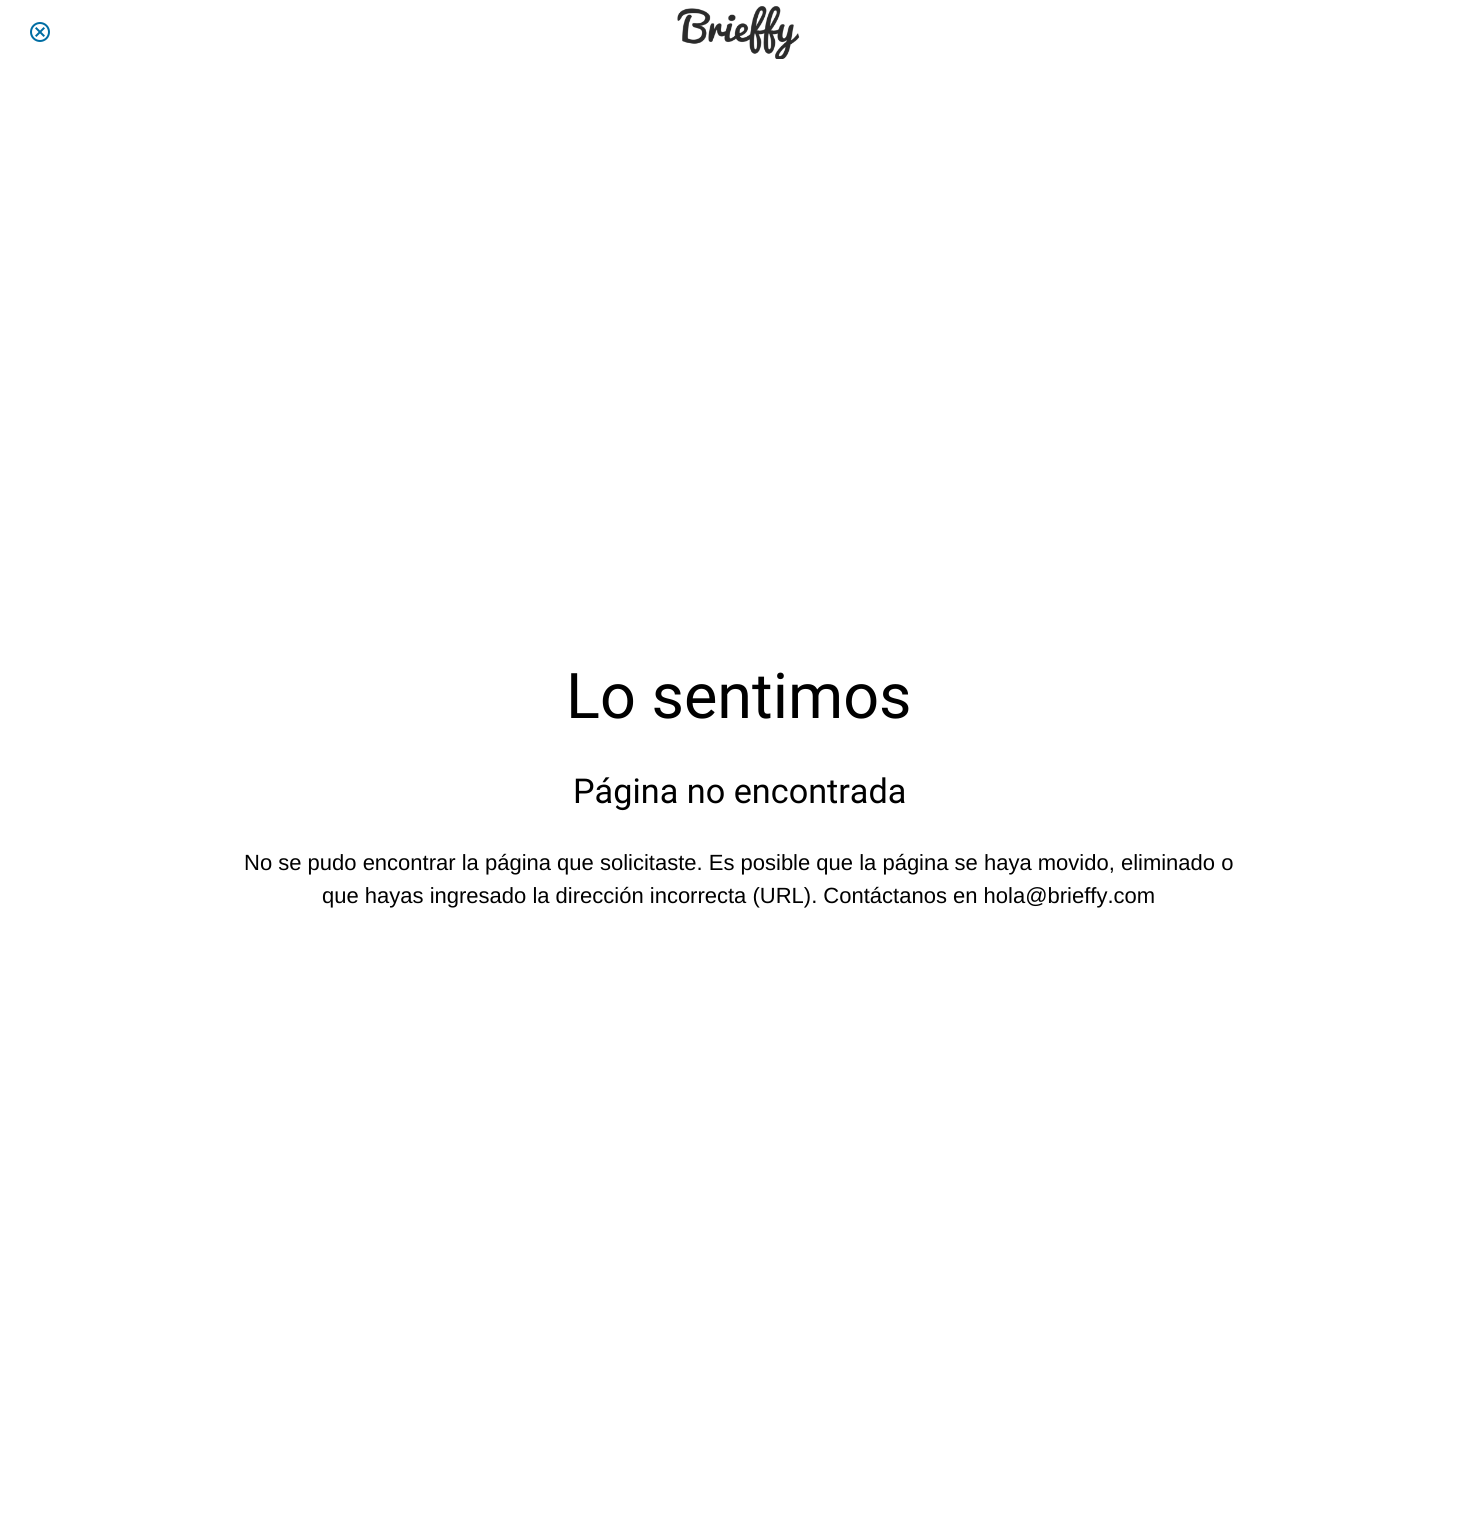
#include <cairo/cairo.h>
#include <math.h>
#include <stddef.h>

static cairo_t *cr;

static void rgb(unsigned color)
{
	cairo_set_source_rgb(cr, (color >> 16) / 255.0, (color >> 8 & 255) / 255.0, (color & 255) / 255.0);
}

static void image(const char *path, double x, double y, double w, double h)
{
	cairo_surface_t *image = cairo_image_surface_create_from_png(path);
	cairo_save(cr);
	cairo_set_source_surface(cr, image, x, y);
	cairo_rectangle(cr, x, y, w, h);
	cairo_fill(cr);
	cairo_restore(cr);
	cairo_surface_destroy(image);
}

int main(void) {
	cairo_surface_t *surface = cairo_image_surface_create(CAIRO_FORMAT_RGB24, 1478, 1532);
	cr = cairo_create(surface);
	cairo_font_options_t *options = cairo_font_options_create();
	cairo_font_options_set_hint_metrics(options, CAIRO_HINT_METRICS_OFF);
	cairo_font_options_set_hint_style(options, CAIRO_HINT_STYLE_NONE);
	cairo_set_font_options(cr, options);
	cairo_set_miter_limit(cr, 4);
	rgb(0xffffff);
	cairo_paint(cr);
	image("img/1.png", 30, 22, 20, 20);
	image("img/2.png", 677, 6, 123, 53);
	cairo_select_font_face(cr, "Roboto", CAIRO_FONT_SLANT_NORMAL, CAIRO_FONT_WEIGHT_NORMAL);
	cairo_set_font_size(cr, 63);
	rgb(0x000000);
	cairo_move_to(cr, 566, 718);
	cairo_show_text(cr, "Lo sentimos");
	cairo_set_font_size(cr, 34.25);
	cairo_move_to(cr, 573, 803);
	cairo_show_text(cr, "Página no encontrada");
	cairo_select_font_face(cr, "Liberation Sans", CAIRO_FONT_SLANT_NORMAL, CAIRO_FONT_WEIGHT_NORMAL);
	cairo_set_font_size(cr, 22);
	cairo_move_to(cr, 244, 870);
	cairo_show_text(cr, "No se pudo encontrar la página que solicitaste. Es posible que la página se haya movido, eliminado o");
	cairo_move_to(cr, 322, 903);
	cairo_show_text(cr, "que hayas ingresado la dirección incorrecta (URL). Contáctanos en hola@brieffy.com");
	cairo_surface_write_to_png(surface, "page.png");
	cairo_font_options_destroy(options);
	cairo_destroy(cr);
	cairo_surface_destroy(surface);
	return 0;
}
